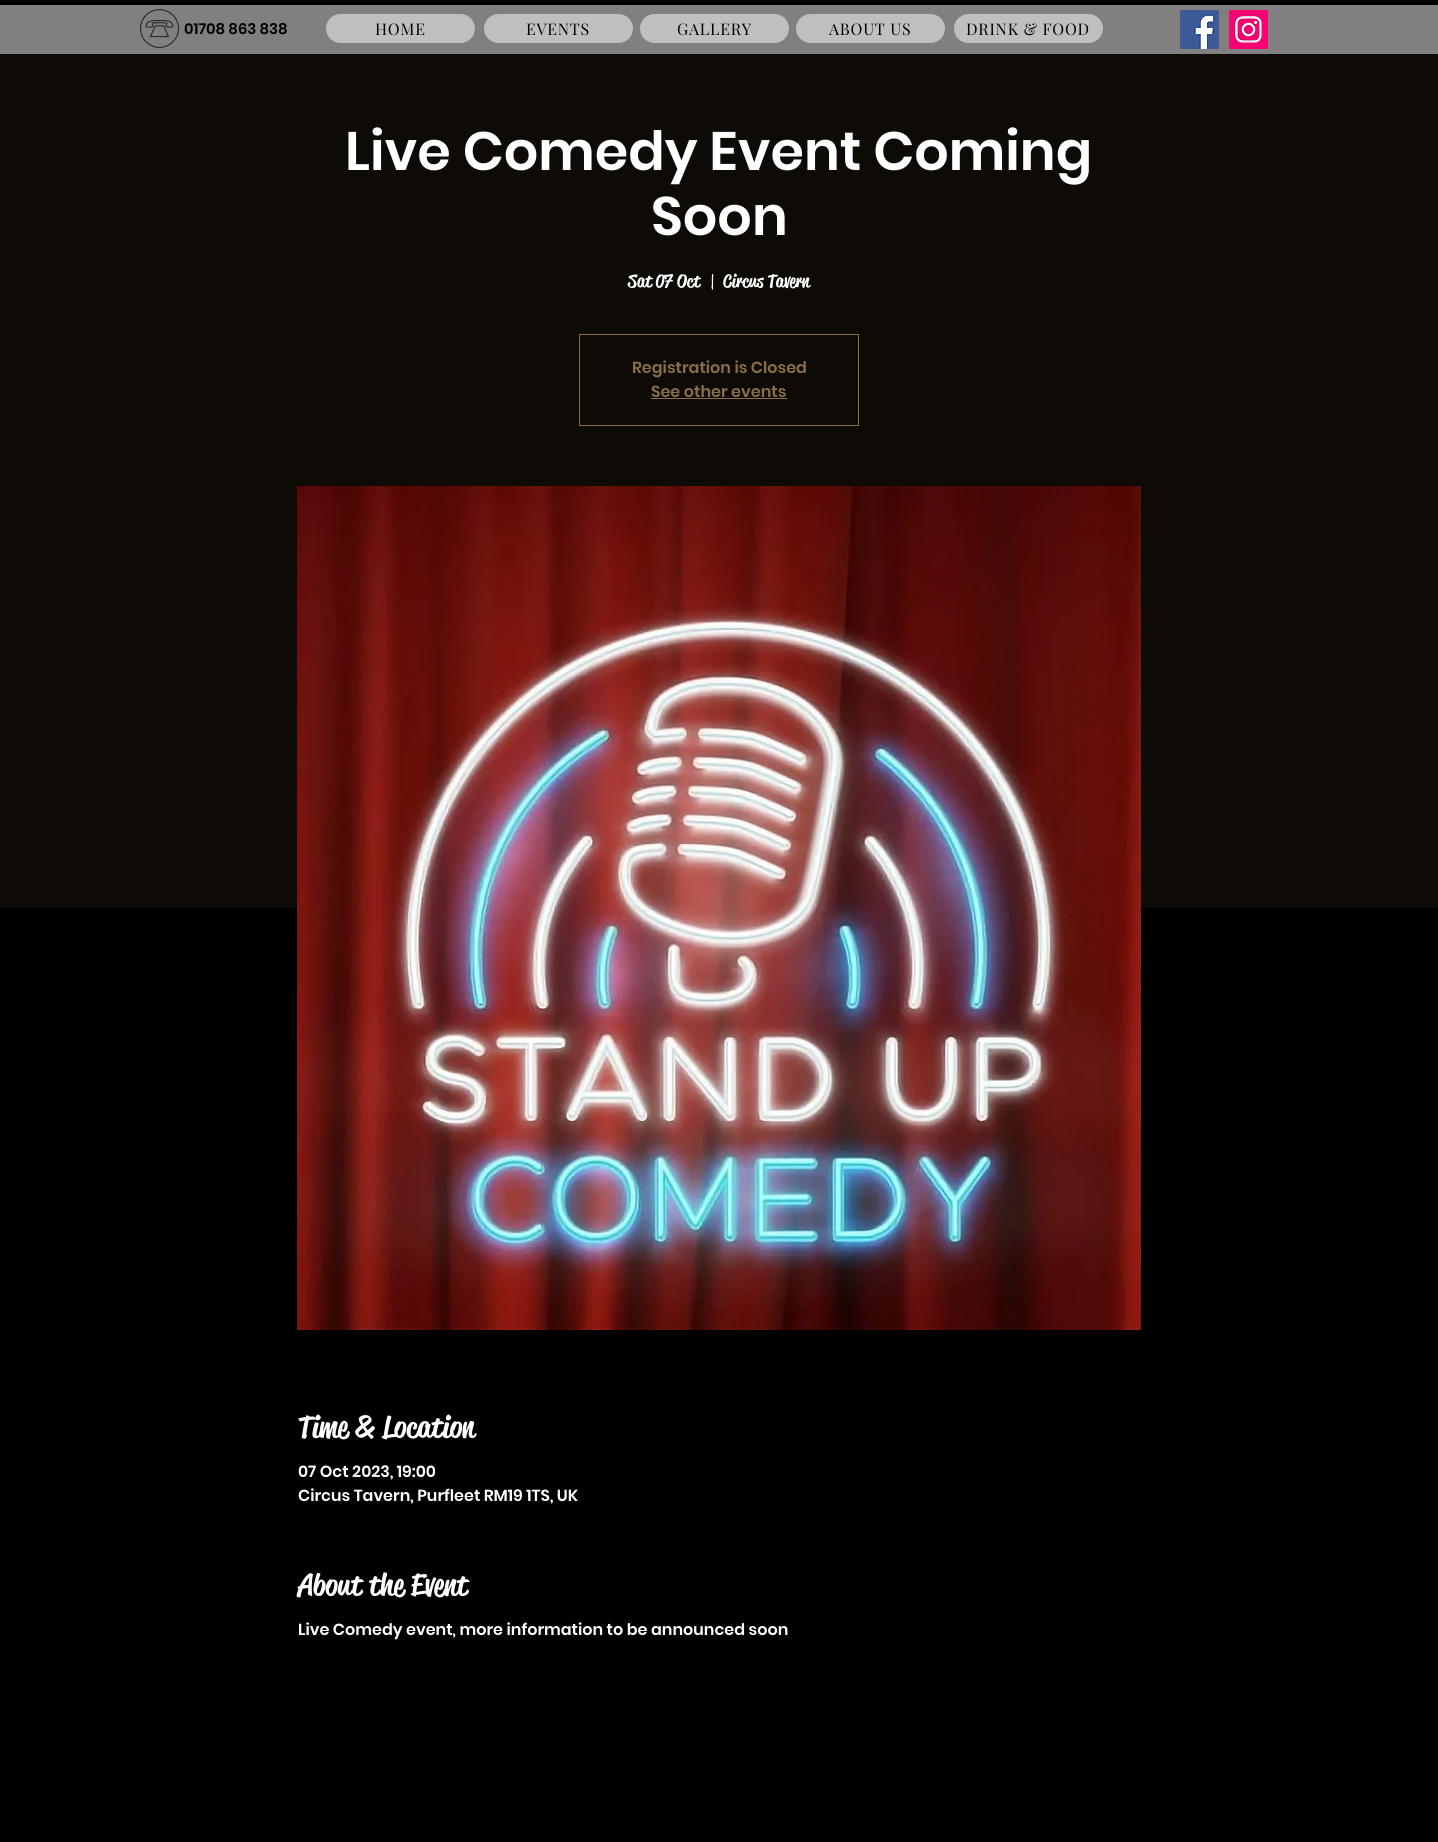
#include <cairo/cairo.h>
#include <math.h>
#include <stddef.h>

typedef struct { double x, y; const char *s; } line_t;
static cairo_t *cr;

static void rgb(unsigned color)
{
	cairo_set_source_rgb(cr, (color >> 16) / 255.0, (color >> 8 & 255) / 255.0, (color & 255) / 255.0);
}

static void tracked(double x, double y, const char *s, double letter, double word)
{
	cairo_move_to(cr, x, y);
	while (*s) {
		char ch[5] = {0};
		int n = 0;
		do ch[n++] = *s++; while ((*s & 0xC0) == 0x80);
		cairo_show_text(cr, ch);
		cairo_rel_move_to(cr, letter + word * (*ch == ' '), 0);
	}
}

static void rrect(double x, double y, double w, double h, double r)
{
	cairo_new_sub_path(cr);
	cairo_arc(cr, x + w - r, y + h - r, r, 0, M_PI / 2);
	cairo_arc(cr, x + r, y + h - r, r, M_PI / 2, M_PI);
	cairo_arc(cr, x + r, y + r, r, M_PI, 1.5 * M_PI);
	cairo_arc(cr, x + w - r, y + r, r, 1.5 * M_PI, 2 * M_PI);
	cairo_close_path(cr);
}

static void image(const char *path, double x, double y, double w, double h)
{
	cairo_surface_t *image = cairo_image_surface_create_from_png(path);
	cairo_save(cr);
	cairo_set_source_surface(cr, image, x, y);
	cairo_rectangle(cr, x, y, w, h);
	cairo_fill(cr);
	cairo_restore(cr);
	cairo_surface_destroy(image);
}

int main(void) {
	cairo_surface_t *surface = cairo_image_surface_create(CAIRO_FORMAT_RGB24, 1438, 1842);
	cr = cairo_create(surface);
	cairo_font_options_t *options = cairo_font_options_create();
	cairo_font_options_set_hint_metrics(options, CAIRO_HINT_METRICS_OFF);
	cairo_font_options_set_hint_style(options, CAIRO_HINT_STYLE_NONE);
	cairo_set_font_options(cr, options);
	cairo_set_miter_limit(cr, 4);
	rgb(0x000000);
	cairo_paint(cr);
	rgb(0x808080);
	cairo_rectangle(cr, 0, 5, 1438, 49);
	cairo_fill(cr);
	image("img/1.png", 140, 9, 39, 39);
	rgb(0xbfbfbf);
	rrect(326, 14, 149, 29, 14.5);
	cairo_fill(cr);
	rrect(484, 14, 149, 29, 14.5);
	cairo_fill(cr);
	rrect(640, 14, 149, 29, 14.5);
	cairo_fill(cr);
	rrect(796, 14, 149, 29, 14.5);
	cairo_fill(cr);
	rrect(954, 14, 149, 29, 14.5);
	cairo_fill(cr);
	image("img/2.png", 1180, 10, 39, 39);
	image("img/3.png", 1229, 10, 39, 39);
	rgb(0x0e0b07);
	cairo_rectangle(cr, 0, 54, 1438, 854);
	cairo_fill(cr);
	cairo_rectangle(cr, 579.5, 334.5, 279, 91);
	rgb(0x886f4a);
	cairo_set_line_width(cr, 1);
	cairo_stroke(cr);
	cairo_rectangle(cr, 651, 398, 136, 1);
	cairo_fill(cr);
	image("img/4.png", 297, 486, 844, 844);
	cairo_select_font_face(cr, "Poppins SemiBold", CAIRO_FONT_SLANT_NORMAL, CAIRO_FONT_WEIGHT_NORMAL);
	cairo_set_font_size(cr, 15);
	rgb(0x000000);
	cairo_move_to(cr, 184, 34);
	cairo_show_text(cr, "01708 863 838");
	cairo_select_font_face(cr, "Playfair Display", CAIRO_FONT_SLANT_NORMAL, CAIRO_FONT_WEIGHT_NORMAL);
	cairo_set_font_size(cr, 16);
	{
		static const line_t items[] = {
			{375, 35, "HOME"},
			{526, 35, "EVENTS"},
			{677, 35, "GALLERY"},
			{829, 35, "ABOUT US"},
			{966, 35, "DRINK & FOOD"},
		};
		for (size_t i = 0; i < sizeof items / sizeof *items; i++) {
			tracked(items[i].x, items[i].y, items[i].s, 0.75, 0);
		}
	}
	cairo_select_font_face(cr, "Poppins SemiBold", CAIRO_FONT_SLANT_NORMAL, CAIRO_FONT_WEIGHT_NORMAL);
	cairo_set_font_size(cr, 54);
	rgb(0xffffff);
	cairo_move_to(cr, 345, 170);
	cairo_show_text(cr, "Live Comedy Event Coming");
	cairo_move_to(cr, 651, 235);
	cairo_show_text(cr, "Soon");
	cairo_select_font_face(cr, "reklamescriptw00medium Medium", CAIRO_FONT_SLANT_NORMAL, CAIRO_FONT_WEIGHT_NORMAL);
	cairo_set_font_size(cr, 18);
	{
		static const line_t items[] = {
			{628, 287, "Sat 07 Oct"},
			{709, 287, "|"},
			{723, 287, "Circus Tavern"},
		};
		for (size_t i = 0; i < sizeof items / sizeof *items; i++) {
			cairo_move_to(cr, items[i].x, items[i].y);
			cairo_show_text(cr, items[i].s);
		}
	}
	cairo_select_font_face(cr, "Poppins SemiBold", CAIRO_FONT_SLANT_NORMAL, CAIRO_FONT_WEIGHT_NORMAL);
	cairo_set_font_size(cr, 16);
	rgb(0x886f4a);
	cairo_move_to(cr, 632, 373);
	cairo_show_text(cr, "Registration is Closed");
	cairo_move_to(cr, 651, 397);
	cairo_show_text(cr, "See other events");
	cairo_select_font_face(cr, "reklamescriptw00medium Medium", CAIRO_FONT_SLANT_NORMAL, CAIRO_FONT_WEIGHT_NORMAL);
	cairo_set_font_size(cr, 30);
	rgb(0xffffff);
	cairo_move_to(cr, 298, 1437);
	cairo_show_text(cr, "Time & Location");
	cairo_select_font_face(cr, "Poppins SemiBold", CAIRO_FONT_SLANT_NORMAL, CAIRO_FONT_WEIGHT_NORMAL);
	cairo_set_font_size(cr, 16);
	cairo_move_to(cr, 298, 1477);
	cairo_show_text(cr, "07 Oct 2023, 19:00");
	cairo_move_to(cr, 298, 1501);
	cairo_show_text(cr, "Circus Tavern, Purfleet RM19 1TS, UK");
	cairo_select_font_face(cr, "reklamescriptw00medium Medium", CAIRO_FONT_SLANT_NORMAL, CAIRO_FONT_WEIGHT_NORMAL);
	cairo_set_font_size(cr, 30);
	cairo_move_to(cr, 298, 1595);
	cairo_show_text(cr, "About the Event");
	cairo_select_font_face(cr, "Poppins SemiBold", CAIRO_FONT_SLANT_NORMAL, CAIRO_FONT_WEIGHT_NORMAL);
	cairo_set_font_size(cr, 16);
	cairo_move_to(cr, 298, 1635);
	cairo_show_text(cr, "Live Comedy event, more information to be announced soon");
	cairo_surface_write_to_png(surface, "page.png");
	cairo_font_options_destroy(options);
	cairo_destroy(cr);
	cairo_surface_destroy(surface);
	return 0;
}
